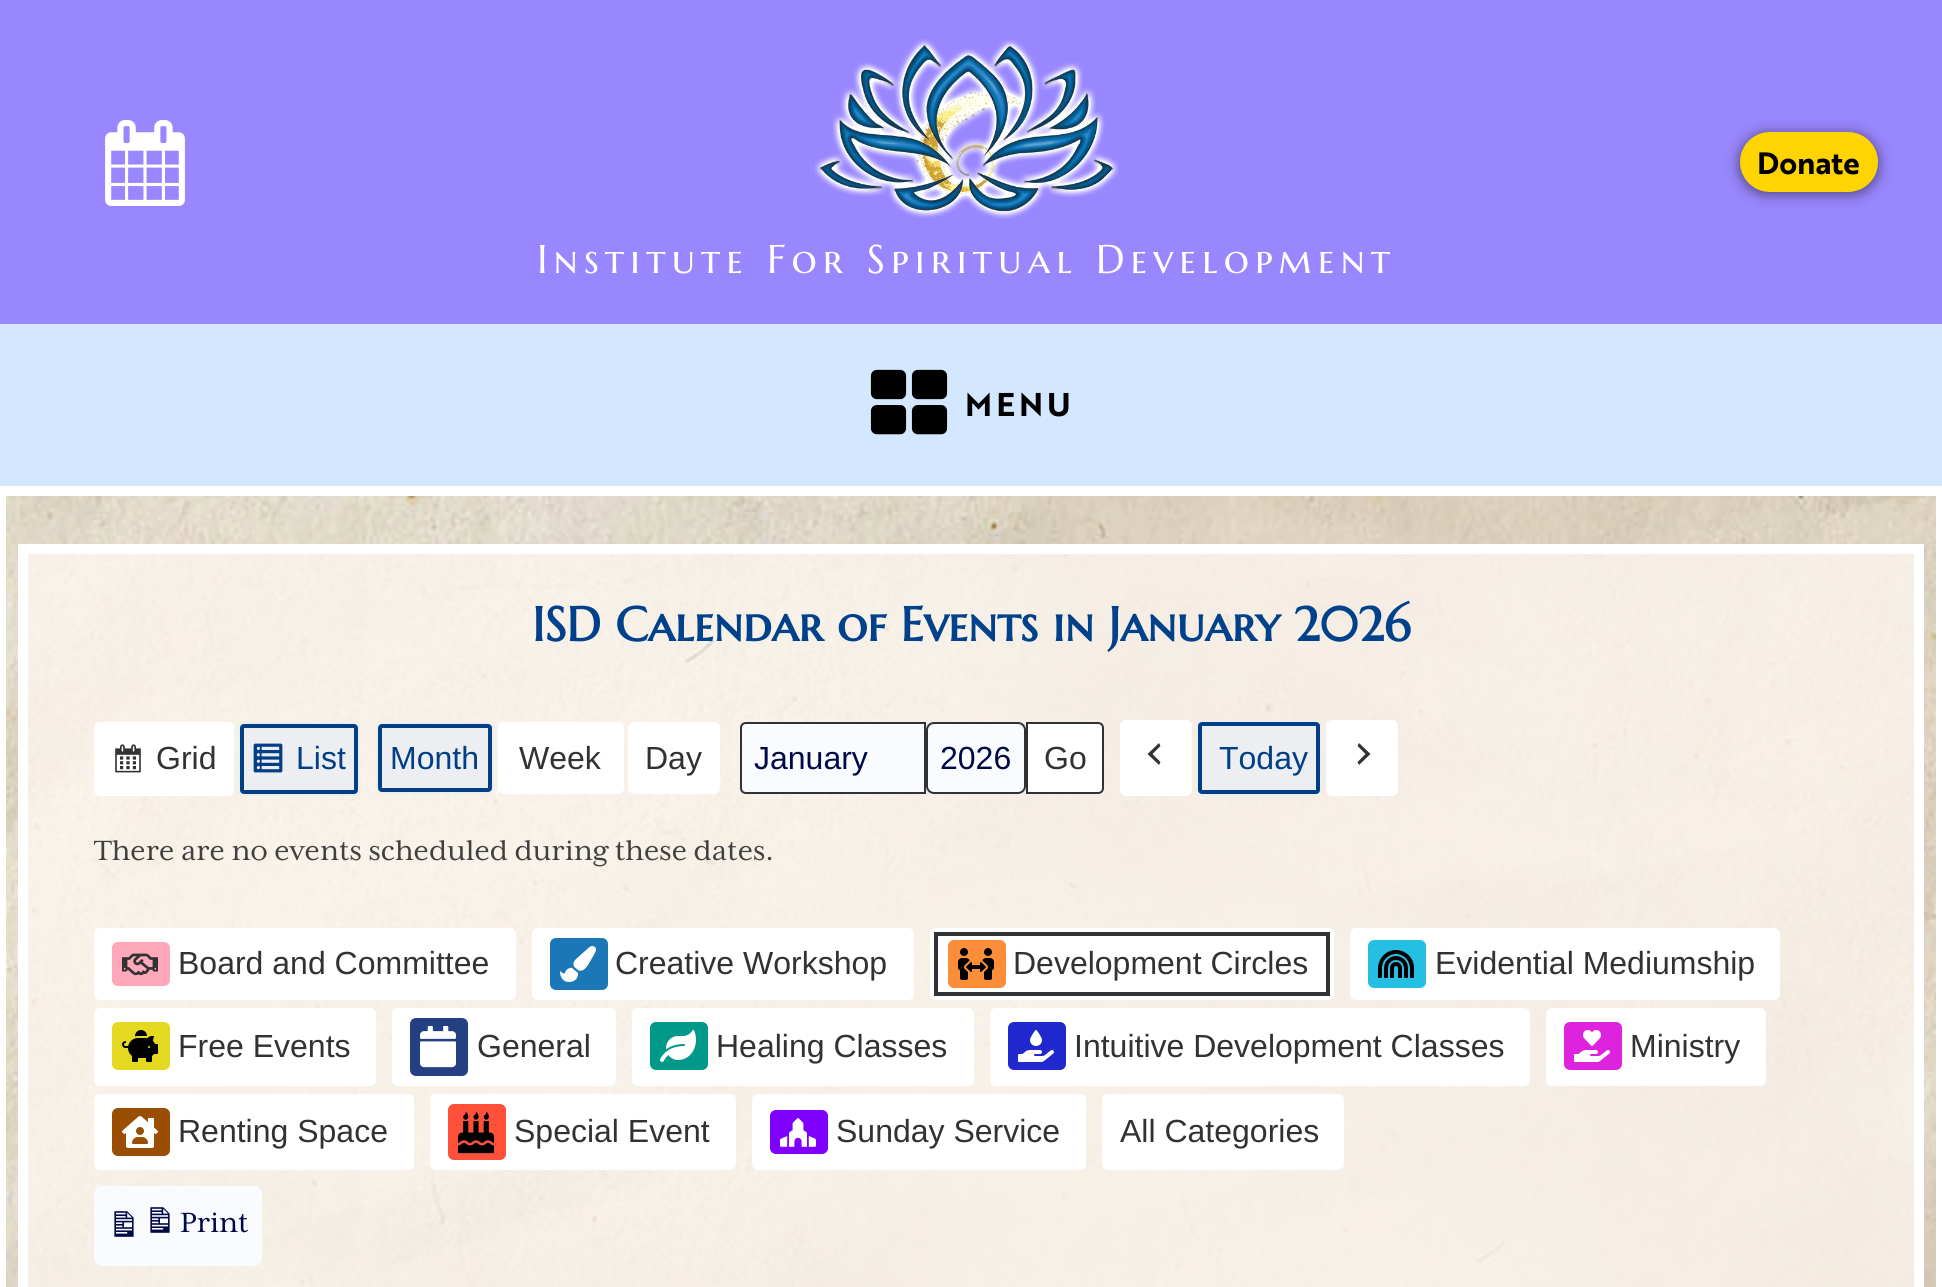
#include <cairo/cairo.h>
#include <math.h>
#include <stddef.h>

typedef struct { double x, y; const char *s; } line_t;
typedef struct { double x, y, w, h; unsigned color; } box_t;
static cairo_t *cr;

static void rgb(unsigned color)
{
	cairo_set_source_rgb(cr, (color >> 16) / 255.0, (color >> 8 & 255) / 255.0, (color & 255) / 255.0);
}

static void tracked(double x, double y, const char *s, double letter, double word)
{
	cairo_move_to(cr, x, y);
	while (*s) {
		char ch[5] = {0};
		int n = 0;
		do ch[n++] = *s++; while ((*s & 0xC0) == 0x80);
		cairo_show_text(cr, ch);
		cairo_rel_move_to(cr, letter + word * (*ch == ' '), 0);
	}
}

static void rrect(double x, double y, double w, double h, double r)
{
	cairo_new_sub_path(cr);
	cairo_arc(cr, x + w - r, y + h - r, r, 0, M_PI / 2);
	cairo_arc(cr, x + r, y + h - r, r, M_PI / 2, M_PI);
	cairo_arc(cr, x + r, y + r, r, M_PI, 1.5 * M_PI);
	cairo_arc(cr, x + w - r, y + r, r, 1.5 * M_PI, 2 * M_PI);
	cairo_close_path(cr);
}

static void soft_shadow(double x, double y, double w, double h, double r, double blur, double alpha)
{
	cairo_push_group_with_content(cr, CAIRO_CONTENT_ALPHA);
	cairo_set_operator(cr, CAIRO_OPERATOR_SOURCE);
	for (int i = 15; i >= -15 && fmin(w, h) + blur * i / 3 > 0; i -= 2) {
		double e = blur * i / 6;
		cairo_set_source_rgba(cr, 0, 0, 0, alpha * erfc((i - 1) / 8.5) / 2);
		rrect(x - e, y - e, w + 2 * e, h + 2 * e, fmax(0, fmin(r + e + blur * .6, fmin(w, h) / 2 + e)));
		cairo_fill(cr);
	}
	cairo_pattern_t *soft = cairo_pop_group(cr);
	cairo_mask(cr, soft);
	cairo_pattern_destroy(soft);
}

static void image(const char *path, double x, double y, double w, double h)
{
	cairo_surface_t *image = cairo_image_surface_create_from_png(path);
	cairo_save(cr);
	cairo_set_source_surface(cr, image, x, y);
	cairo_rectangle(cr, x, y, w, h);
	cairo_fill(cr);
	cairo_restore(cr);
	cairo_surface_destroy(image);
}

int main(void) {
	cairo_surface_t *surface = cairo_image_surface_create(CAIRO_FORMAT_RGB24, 1942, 1287);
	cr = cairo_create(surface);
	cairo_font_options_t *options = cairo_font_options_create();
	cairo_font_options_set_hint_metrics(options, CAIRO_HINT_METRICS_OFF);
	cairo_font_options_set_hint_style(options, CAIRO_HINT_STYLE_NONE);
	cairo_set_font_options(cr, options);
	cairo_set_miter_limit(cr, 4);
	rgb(0xd3e7ff);
	cairo_paint(cr);
	rgb(0x9987ff);
	cairo_rectangle(cr, 0, 0, 1942, 324);
	cairo_fill(cr);
	image("img/1.png", 105, 120, 80, 86);
	rgb(0x0a0a0a);
	soft_shadow(1740, 134, 138, 60, 30, 7, 0.56);
	rgb(0xffd400);
	rrect(1741, 133, 136, 58, 29);
	cairo_fill_preserve(cr);
	cairo_stroke(cr);
	image("img/2.png", 814, 39, 305, 180);
	image("img/3.png", 870, 369, 78, 66);
	image("img/4.png", 6, 496, 1930, 791);
	{
		static const box_t items[] = {
			{6, 486, 1930, 10, 0xffffff},
			{1936, 486, 6, 801, 0xffffff},
			{0, 486, 6, 801, 0xffffff},
		};
		for (size_t i = 0; i < sizeof items / sizeof *items; i++) {
			rgb(items[i].color);
			cairo_rectangle(cr, items[i].x, items[i].y, items[i].w, items[i].h);
			cairo_fill(cr);
		}
	}
	cairo_rectangle(cr, 23, 549, 1896, 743);
	cairo_set_line_width(cr, 10);
	cairo_stroke(cr);
	rrect(94, 722, 140, 74, 6);
	cairo_fill(cr);
	image("img/5.png", 115, 744, 26, 29);
	rgb(0xedeef2);
	rrect(238, 722, 122, 74, 6);
	cairo_fill(cr);
	rrect(242, 726, 114, 66, 2);
	rgb(0x003e85);
	cairo_set_line_width(cr, 4);
	cairo_stroke(cr);
	image("img/6.png", 253, 743, 30, 30);
	rgb(0xedeef2);
	rrect(376, 722, 118, 72, 6);
	cairo_fill(cr);
	rrect(380, 726, 110, 64, 2);
	rgb(0x003e85);
	cairo_stroke(cr);
	rgb(0xffffff);
	rrect(498, 722, 126, 72, 6);
	cairo_fill(cr);
	rrect(628, 722, 92, 72, 6);
	cairo_fill(cr);
	rgb(0xf9fbff);
	cairo_new_path(cr);
	cairo_move_to(cr, 746, 723);
	cairo_line_to(cr, 925, 723);
	cairo_line_to(cr, 925, 793);
	cairo_line_to(cr, 746, 793);
	cairo_curve_to(cr, 743, 793, 741, 791, 741, 788);
	cairo_line_to(cr, 741, 728);
	cairo_curve_to(cr, 741, 725, 743, 723, 746, 723);
	cairo_close_path(cr);
	cairo_fill_preserve(cr);
	rgb(0x313233);
	cairo_set_line_width(cr, 2);
	cairo_stroke(cr);
	rgb(0xf9fbff);
	rrect(927, 723, 98, 70, 7);
	cairo_fill_preserve(cr);
	rgb(0x313233);
	cairo_stroke(cr);
	rgb(0xffffff);
	cairo_new_path(cr);
	cairo_move_to(cr, 1027, 723);
	cairo_line_to(cr, 1098, 723);
	cairo_curve_to(cr, 1101, 723, 1103, 725, 1103, 728);
	cairo_line_to(cr, 1103, 788);
	cairo_curve_to(cr, 1103, 791, 1101, 793, 1098, 793);
	cairo_line_to(cr, 1027, 793);
	cairo_close_path(cr);
	cairo_fill_preserve(cr);
	rgb(0x313233);
	cairo_stroke(cr);
	rgb(0xffffff);
	rrect(1120, 720, 72, 76, 6);
	cairo_fill(cr);
	rgb(0x313233);
	cairo_new_path(cr);
	cairo_move_to(cr, 1160.5, 746);
	cairo_line_to(cr, 1152.5, 754);
	cairo_line_to(cr, 1160.5, 762);
	cairo_line_to(cr, 1159, 765);
	cairo_line_to(cr, 1147.5, 754);
	cairo_line_to(cr, 1159, 743);
	cairo_close_path(cr);
	cairo_fill(cr);
	rgb(0xedeef2);
	rrect(1196, 720, 126, 76, 6);
	cairo_fill(cr);
	rrect(1200, 724, 118, 68, 2);
	rgb(0x003e85);
	cairo_set_line_width(cr, 4);
	cairo_stroke(cr);
	rgb(0xffffff);
	rrect(1326, 720, 72, 76, 6);
	cairo_fill(cr);
	rgb(0x313233);
	cairo_new_path(cr);
	cairo_move_to(cr, 1357.5, 762);
	cairo_line_to(cr, 1365.5, 754);
	cairo_line_to(cr, 1357.5, 746);
	cairo_line_to(cr, 1359, 743);
	cairo_line_to(cr, 1370.5, 754);
	cairo_line_to(cr, 1359, 765);
	cairo_close_path(cr);
	cairo_fill(cr);
	rgb(0xffffff);
	rrect(94, 928, 422, 72, 6);
	cairo_fill(cr);
	rgb(0xffa8bc);
	rrect(112, 942, 58, 44, 6);
	cairo_fill(cr);
	image("img/7.png", 122, 953, 36, 23);
	rgb(0xffffff);
	rrect(532, 928, 382, 72, 6);
	cairo_fill(cr);
	rgb(0x1b77b5);
	rrect(550, 938, 58, 52, 6);
	cairo_fill(cr);
	image("img/8.png", 560, 946, 36, 36);
	rgb(0xffffff);
	rrect(930, 928, 404, 72, 6);
	cairo_fill(cr);
	cairo_rectangle(cr, 936, 934, 392, 60);
	rgb(0x313233);
	cairo_stroke(cr);
	rgb(0xfc8e3a);
	rrect(948, 940, 58, 48, 6);
	cairo_fill(cr);
	image("img/9.png", 958, 948, 36, 32);
	rgb(0xffffff);
	rrect(1350, 928, 430, 72, 6);
	cairo_fill(cr);
	rgb(0x24bfe2);
	rrect(1368, 940, 58, 48, 6);
	cairo_fill(cr);
	image("img/10.png", 1378, 950, 36, 28);
	rgb(0xffffff);
	rrect(94, 1008, 282, 78, 6);
	cairo_fill(cr);
	rgb(0xe5d820);
	rrect(112, 1022, 58, 48, 6);
	cairo_fill(cr);
	image("img/11.png", 122, 1030, 36, 32);
	rgb(0xffffff);
	rrect(392, 1008, 224, 78, 6);
	cairo_fill(cr);
	rgb(0x243f82);
	rrect(410, 1018, 58, 58, 6);
	cairo_fill(cr);
	image("img/12.png", 420, 1026, 36, 42);
	rgb(0xffffff);
	rrect(632, 1008, 342, 78, 6);
	cairo_fill(cr);
	rgb(0x009989);
	rrect(650, 1022, 58, 48, 6);
	cairo_fill(cr);
	image("img/13.png", 660, 1030, 36, 32);
	rgb(0xffffff);
	rrect(990, 1008, 540, 78, 6);
	cairo_fill(cr);
	rgb(0x2129ce);
	rrect(1008, 1022, 58, 48, 6);
	cairo_fill(cr);
	image("img/14.png", 1018, 1030, 36, 32);
	rgb(0xffffff);
	rrect(1546, 1008, 220, 78, 6);
	cairo_fill(cr);
	rgb(0xdd23dd);
	rrect(1564, 1022, 58, 48, 6);
	cairo_fill(cr);
	image("img/15.png", 1574, 1030, 36, 32);
	rgb(0xffffff);
	rrect(94, 1094, 320, 76, 6);
	cairo_fill(cr);
	rgb(0x994e04);
	rrect(112, 1108, 58, 48, 6);
	cairo_fill(cr);
	image("img/16.png", 122, 1116, 36, 32);
	rgb(0xffffff);
	rrect(430, 1094, 306, 76, 6);
	cairo_fill(cr);
	rgb(0xff513a);
	rrect(448, 1104, 58, 56, 6);
	cairo_fill(cr);
	image("img/17.png", 458, 1112, 36, 42);
	rgb(0xffffff);
	rrect(752, 1094, 334, 76, 6);
	cairo_fill(cr);
	rgb(0x7f00ff);
	rrect(770, 1110, 58, 44, 6);
	cairo_fill(cr);
	image("img/18.png", 780, 1118, 36, 29);
	rgb(0xffffff);
	rrect(1102, 1094, 242, 76, 6);
	cairo_fill(cr);
	rgb(0xf9fbff);
	rrect(94, 1186, 168, 80, 8);
	cairo_fill(cr);
	image("img/19.png", 114, 1211, 20, 26);
	image("img/19.png", 150, 1207, 20, 26);
	cairo_select_font_face(cr, "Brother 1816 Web", CAIRO_FONT_SLANT_NORMAL, CAIRO_FONT_WEIGHT_BOLD);
	cairo_set_font_size(cr, 30);
	rgb(0x000000);
	cairo_move_to(cr, 1757, 174);
	cairo_show_text(cr, "Donate");
	cairo_select_font_face(cr, "Marcellus SC", CAIRO_FONT_SLANT_NORMAL, CAIRO_FONT_WEIGHT_NORMAL);
	cairo_set_font_size(cr, 40);
	rgb(0xffffff);
	tracked(537, 273, "Institute For Spiritual Development", 6, 0);
	cairo_select_font_face(cr, "Brother 1816 Web", CAIRO_FONT_SLANT_NORMAL, CAIRO_FONT_WEIGHT_BOLD);
	cairo_set_font_size(cr, 32);
	rgb(0x000000);
	tracked(965, 416, "MENU", 4, 0);
	cairo_select_font_face(cr, "Marcellus SC", CAIRO_FONT_SLANT_NORMAL, CAIRO_FONT_WEIGHT_BOLD);
	cairo_set_font_size(cr, 48);
	rgb(0x00418c);
	cairo_move_to(cr, 532, 641);
	cairo_show_text(cr, "ISD Calendar of Events in January 2026");
	cairo_select_font_face(cr, "Liberation Sans", CAIRO_FONT_SLANT_NORMAL, CAIRO_FONT_WEIGHT_NORMAL);
	cairo_set_font_size(cr, 32);
	rgb(0x313233);
	cairo_move_to(cr, 156, 769);
	cairo_show_text(cr, "Grid");
	rgb(0x003e85);
	cairo_move_to(cr, 296, 769);
	cairo_show_text(cr, "List");
	cairo_move_to(cr, 390, 769);
	cairo_show_text(cr, "Month");
	rgb(0x313233);
	cairo_move_to(cr, 519, 769);
	cairo_show_text(cr, "Week");
	cairo_move_to(cr, 645, 769);
	cairo_show_text(cr, "Day");
	rgb(0x000947);
	cairo_move_to(cr, 754, 769);
	cairo_show_text(cr, "January");
	cairo_move_to(cr, 940, 769);
	cairo_show_text(cr, "2026");
	rgb(0x313233);
	cairo_move_to(cr, 1044, 769);
	cairo_show_text(cr, "Go");
	rgb(0x003e85);
	cairo_move_to(cr, 1219, 769);
	cairo_show_text(cr, "Today");
	cairo_select_font_face(cr, "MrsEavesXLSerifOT", CAIRO_FONT_SLANT_NORMAL, CAIRO_FONT_WEIGHT_NORMAL);
	rgb(0x404040);
	cairo_move_to(cr, 94, 860);
	cairo_show_text(cr, "There are no events scheduled during these dates.");
	cairo_select_font_face(cr, "Liberation Sans", CAIRO_FONT_SLANT_NORMAL, CAIRO_FONT_WEIGHT_NORMAL);
	rgb(0x313233);
	{
		static const line_t items[] = {
			{178, 974, "Board and Committee"},
			{615, 974, "Creative Workshop"},
			{1013, 974, "Development Circles"},
			{1435, 974, "Evidential Mediumship"},
			{178, 1057, "Free Events"},
			{477, 1057, "General"},
			{716, 1057, "Healing Classes"},
			{1074, 1057, "Intuitive Development Classes"},
			{1630, 1057, "Ministry"},
			{178, 1142, "Renting Space"},
			{514, 1142, "Special Event"},
			{836, 1142, "Sunday Service"},
			{1120, 1142, "All Categories"},
		};
		for (size_t i = 0; i < sizeof items / sizeof *items; i++) {
			cairo_move_to(cr, items[i].x, items[i].y);
			cairo_show_text(cr, items[i].s);
		}
	}
	cairo_select_font_face(cr, "MrsEavesXLSerifOT", CAIRO_FONT_SLANT_NORMAL, CAIRO_FONT_WEIGHT_NORMAL);
	rgb(0x000947);
	cairo_move_to(cr, 180, 1232);
	cairo_show_text(cr, "Print");
	cairo_surface_write_to_png(surface, "page.png");
	cairo_font_options_destroy(options);
	cairo_destroy(cr);
	cairo_surface_destroy(surface);
	return 0;
}
